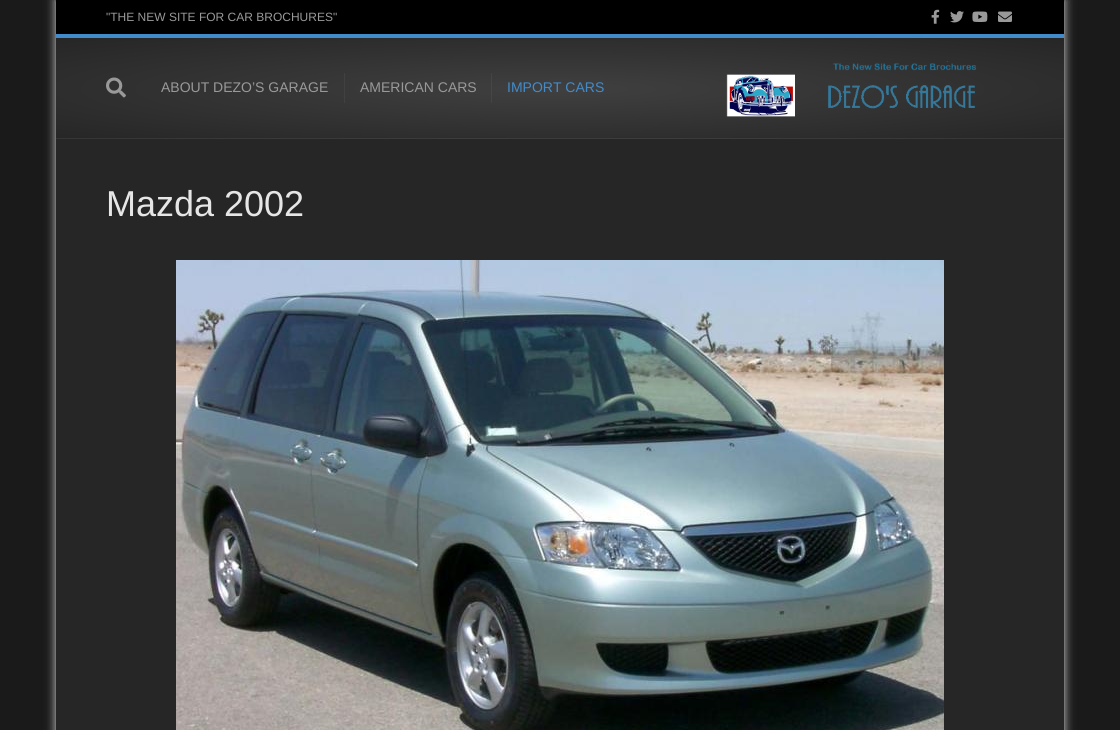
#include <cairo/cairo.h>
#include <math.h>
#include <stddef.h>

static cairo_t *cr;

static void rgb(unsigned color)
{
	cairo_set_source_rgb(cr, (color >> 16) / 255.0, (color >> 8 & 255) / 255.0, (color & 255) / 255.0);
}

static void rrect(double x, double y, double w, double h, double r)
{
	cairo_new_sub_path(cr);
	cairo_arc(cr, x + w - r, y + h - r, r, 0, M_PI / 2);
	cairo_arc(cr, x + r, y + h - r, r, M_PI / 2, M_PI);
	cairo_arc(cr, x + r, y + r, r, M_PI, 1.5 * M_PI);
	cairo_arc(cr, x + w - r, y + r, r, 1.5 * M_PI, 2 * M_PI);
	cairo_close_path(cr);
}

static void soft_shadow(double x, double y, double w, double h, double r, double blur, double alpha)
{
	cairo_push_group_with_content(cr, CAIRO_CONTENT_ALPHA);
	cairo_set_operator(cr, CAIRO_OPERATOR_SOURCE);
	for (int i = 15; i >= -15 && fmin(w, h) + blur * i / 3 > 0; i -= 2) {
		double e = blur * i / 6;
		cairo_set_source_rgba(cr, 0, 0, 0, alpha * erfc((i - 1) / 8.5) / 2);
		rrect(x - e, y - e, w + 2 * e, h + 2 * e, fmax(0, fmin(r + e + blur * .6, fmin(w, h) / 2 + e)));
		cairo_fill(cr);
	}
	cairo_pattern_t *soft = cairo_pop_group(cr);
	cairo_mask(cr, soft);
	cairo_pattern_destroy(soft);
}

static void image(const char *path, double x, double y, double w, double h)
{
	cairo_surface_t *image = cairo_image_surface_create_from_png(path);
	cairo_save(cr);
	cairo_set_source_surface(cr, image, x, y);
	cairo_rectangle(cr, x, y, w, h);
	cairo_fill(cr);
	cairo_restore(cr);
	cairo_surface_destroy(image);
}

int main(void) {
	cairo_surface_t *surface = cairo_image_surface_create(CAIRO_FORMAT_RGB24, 1120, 730);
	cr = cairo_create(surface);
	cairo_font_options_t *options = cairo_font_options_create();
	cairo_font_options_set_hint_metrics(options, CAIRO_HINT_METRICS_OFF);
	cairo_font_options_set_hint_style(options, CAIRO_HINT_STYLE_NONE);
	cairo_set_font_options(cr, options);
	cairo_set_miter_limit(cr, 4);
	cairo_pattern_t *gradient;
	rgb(0x1a1a1a);
	cairo_paint(cr);
	rgb(0xd9d9d9);
	soft_shadow(56, 0, 1008, 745, 0, 5, 1);
	rgb(0x000000);
	cairo_rectangle(cr, 56, 0, 1008, 34);
	cairo_fill(cr);
	rgb(0x428bca);
	cairo_rectangle(cr, 56, 34, 1008, 4);
	cairo_fill(cr);
	image("img/1.png", 931, 9, 9, 15);
	image("img/2.png", 950, 11, 14, 12);
	image("img/3.png", 972, 11, 16, 11);
	image("img/4.png", 998, 11, 14, 11);
	gradient = cairo_pattern_create_radial(0, 0, 0, 0, 0, 1);
	cairo_pattern_set_matrix(gradient, &(cairo_matrix_t){1.0 / 713, 0, 0, 1.0 / 71, -1.0 * 560 / 713, -1.0 * 89 / 71});
	cairo_pattern_add_color_stop_rgba(gradient, 0, 0.251, 0.251, 0.251, 1);
	cairo_pattern_add_color_stop_rgba(gradient, 1, 0.149, 0.149, 0.149, 1);
	cairo_set_source(cr, gradient);
	cairo_pattern_destroy(gradient);
	cairo_rectangle(cr, 56, 38, 1008, 100);
	cairo_fill(cr);
	gradient = cairo_pattern_create_radial(0, 0, 0, 0, 0, 1);
	cairo_pattern_set_matrix(gradient, &(cairo_matrix_t){1.0 / 713, 0, 0, 1.0 / 71, -1.0 * 560 / 713, -1.0 * 89 / 71});
	cairo_pattern_add_color_stop_rgba(gradient, 0, 0.286, 0.286, 0.286, 1);
	cairo_pattern_add_color_stop_rgba(gradient, 1, 0.196, 0.196, 0.196, 1);
	cairo_set_source(cr, gradient);
	cairo_pattern_destroy(gradient);
	cairo_rectangle(cr, 491, 73, 1, 30);
	cairo_fill(cr);
	gradient = cairo_pattern_create_radial(0, 0, 0, 0, 0, 1);
	cairo_pattern_set_matrix(gradient, &(cairo_matrix_t){1.0 / 713, 0, 0, 1.0 / 71, -1.0 * 560 / 713, -1.0 * 89 / 71});
	cairo_pattern_add_color_stop_rgba(gradient, 0, 0.298, 0.298, 0.298, 1);
	cairo_pattern_add_color_stop_rgba(gradient, 1, 0.208, 0.208, 0.208, 1);
	cairo_set_source(cr, gradient);
	cairo_pattern_destroy(gradient);
	cairo_rectangle(cr, 56, 138, 1008, 1);
	cairo_fill(cr);
	image("img/5.png", 106, 77, 20, 21);
	rgb(0x414141);
	cairo_rectangle(cr, 344, 73, 1, 30);
	cairo_fill(cr);
	image("img/6.png", 726, 61, 251, 56);
	rgb(0x262626);
	cairo_rectangle(cr, 56, 139, 1008, 591);
	cairo_fill(cr);
	image("img/7.png", 176, 260, 768, 470);
	cairo_select_font_face(cr, "Liberation Sans", CAIRO_FONT_SLANT_NORMAL, CAIRO_FONT_WEIGHT_NORMAL);
	cairo_set_font_size(cr, 12);
	rgb(0x999999);
	cairo_move_to(cr, 106, 21);
	cairo_show_text(cr, "\"THE NEW SITE FOR CAR BROCHURES\"");
	cairo_set_font_size(cr, 14);
	cairo_move_to(cr, 161, 92);
	cairo_show_text(cr, "ABOUT DEZO’S GARAGE");
	cairo_move_to(cr, 360, 92);
	cairo_show_text(cr, "AMERICAN CARS");
	rgb(0x428bca);
	cairo_move_to(cr, 507, 92);
	cairo_show_text(cr, "IMPORT CARS");
	cairo_set_font_size(cr, 36);
	rgb(0xe6e6e6);
	cairo_move_to(cr, 106, 216);
	cairo_show_text(cr, "Mazda 2002");
	cairo_surface_write_to_png(surface, "page.png");
	cairo_font_options_destroy(options);
	cairo_destroy(cr);
	cairo_surface_destroy(surface);
	return 0;
}
